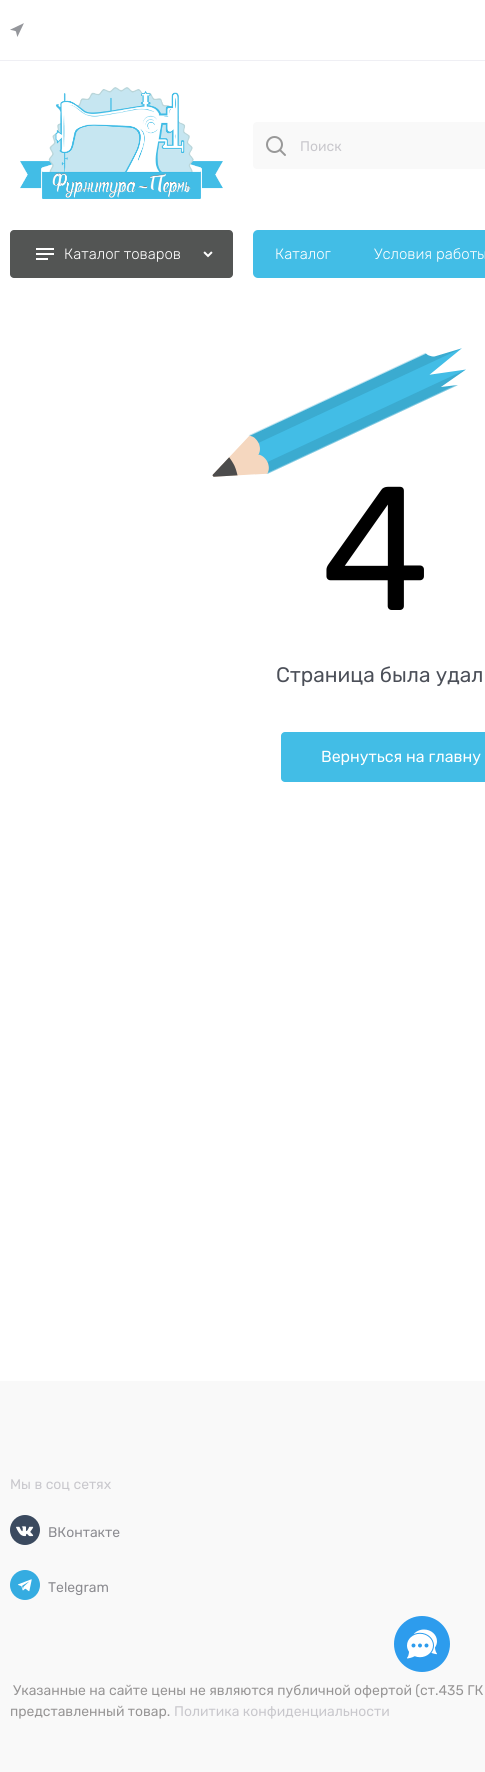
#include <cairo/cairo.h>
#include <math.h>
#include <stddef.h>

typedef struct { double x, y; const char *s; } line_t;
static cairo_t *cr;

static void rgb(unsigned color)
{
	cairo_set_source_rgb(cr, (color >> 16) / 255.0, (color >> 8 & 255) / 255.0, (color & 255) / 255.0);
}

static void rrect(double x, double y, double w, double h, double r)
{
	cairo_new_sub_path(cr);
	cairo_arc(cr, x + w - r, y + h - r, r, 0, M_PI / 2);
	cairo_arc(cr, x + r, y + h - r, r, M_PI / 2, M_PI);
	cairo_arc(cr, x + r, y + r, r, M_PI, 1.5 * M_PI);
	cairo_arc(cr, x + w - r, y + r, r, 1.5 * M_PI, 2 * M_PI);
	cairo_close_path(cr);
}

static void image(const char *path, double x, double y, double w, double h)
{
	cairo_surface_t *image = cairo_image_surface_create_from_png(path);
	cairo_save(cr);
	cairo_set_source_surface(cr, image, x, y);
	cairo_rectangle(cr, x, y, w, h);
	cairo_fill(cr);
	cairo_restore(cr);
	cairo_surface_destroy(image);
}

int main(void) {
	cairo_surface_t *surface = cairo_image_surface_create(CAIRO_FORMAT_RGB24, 485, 1772);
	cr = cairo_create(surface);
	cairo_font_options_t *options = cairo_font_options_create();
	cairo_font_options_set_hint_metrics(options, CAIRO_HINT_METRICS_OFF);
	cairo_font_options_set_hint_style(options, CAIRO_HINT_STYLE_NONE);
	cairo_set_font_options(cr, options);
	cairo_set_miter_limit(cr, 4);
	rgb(0xffffff);
	cairo_paint(cr);
	rgb(0xefeff4);
	cairo_rectangle(cr, 0, 60, 485, 1);
	cairo_fill(cr);
	image("img/1.png", 10, 23, 14, 14);
	image("img/2.png", 20, 87, 203, 112);
	rgb(0xf9f9f9);
	rrect(253, 122, 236, 47, 4);
	cairo_fill(cr);
	image("img/3.png", 266, 136, 20, 20);
	rgb(0x535554);
	rrect(10, 230, 223, 48, 4);
	cairo_fill(cr);
	image("img/4.png", 36, 248, 18, 12);
	image("img/5.png", 203, 251, 10, 7);
	rgb(0x42bde6);
	rrect(253, 230, 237, 48, 5);
	cairo_fill(cr);
	image("img/6.png", 212, 348, 254, 129);
	rrect(281, 732, 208, 50, 4);
	cairo_fill(cr);
	rgb(0xf9f9f9);
	cairo_rectangle(cr, 0, 1381, 485, 391);
	cairo_fill(cr);
	rgb(0x3b4a5f);
	cairo_arc(cr, 25, 1530, 15, 0, 2 * M_PI);
	cairo_fill(cr);
	image("img/7.png", 16, 1526, 18, 11);
	rgb(0x35ace1);
	cairo_arc(cr, 25, 1585, 15, 0, 2 * M_PI);
	cairo_fill(cr);
	image("img/8.png", 18, 1579, 14, 13);
	rgb(0x2d9ced);
	cairo_arc(cr, 422, 1644, 28, 0, 2 * M_PI);
	cairo_fill(cr);
	image("img/9.png", 407, 1629, 30, 30);
	cairo_select_font_face(cr, "Rubik", CAIRO_FONT_SLANT_NORMAL, CAIRO_FONT_WEIGHT_NORMAL);
	cairo_set_font_size(cr, 14);
	rgb(0xc8c7cc);
	cairo_move_to(cr, 300, 151);
	cairo_show_text(cr, "Поиск");
	cairo_select_font_face(cr, "Rubik Light", CAIRO_FONT_SLANT_NORMAL, CAIRO_FONT_WEIGHT_NORMAL);
	cairo_set_font_size(cr, 15);
	rgb(0xffffff);
	{
		static const line_t items[] = {
			{64, 259, "Каталог товаров"},
			{275, 259, "Каталог"},
			{374, 259, "Условия работы"},
		};
		for (size_t i = 0; i < sizeof items / sizeof *items; i++) {
			cairo_move_to(cr, items[i].x, items[i].y);
			cairo_show_text(cr, items[i].s);
		}
	}
	cairo_select_font_face(cr, "Rubik", CAIRO_FONT_SLANT_NORMAL, CAIRO_FONT_WEIGHT_NORMAL);
	cairo_set_font_size(cr, 176);
	rgb(0x000000);
	cairo_move_to(cr, 321, 610);
	cairo_show_text(cr, "4");
	cairo_set_font_size(cr, 21);
	rgb(0x4b4f58);
	cairo_move_to(cr, 276, 682);
	cairo_show_text(cr, "Страница была удал");
	cairo_set_font_size(cr, 16);
	rgb(0xffffff);
	cairo_move_to(cr, 321, 762);
	cairo_show_text(cr, "Вернуться на главну");
	cairo_set_font_size(cr, 14);
	rgb(0xc8c7cc);
	cairo_move_to(cr, 10, 1489);
	cairo_show_text(cr, "Мы в соц сетях");
	rgb(0x8a8a8f);
	cairo_move_to(cr, 48, 1537);
	cairo_show_text(cr, "ВКонтакте");
	cairo_move_to(cr, 48, 1592);
	cairo_show_text(cr, "Telegram");
	rgb(0x969494);
	cairo_move_to(cr, 13, 1695);
	cairo_show_text(cr, "Указанные на сайте цены не являются публичной офертой (ст.435 ГК");
	cairo_move_to(cr, 10, 1716);
	cairo_show_text(cr, "представленный товар.");
	rgb(0xc8c7cc);
	cairo_move_to(cr, 174, 1716);
	cairo_show_text(cr, "Политика конфиденциальности");
	cairo_surface_write_to_png(surface, "page.png");
	cairo_font_options_destroy(options);
	cairo_destroy(cr);
	cairo_surface_destroy(surface);
	return 0;
}
